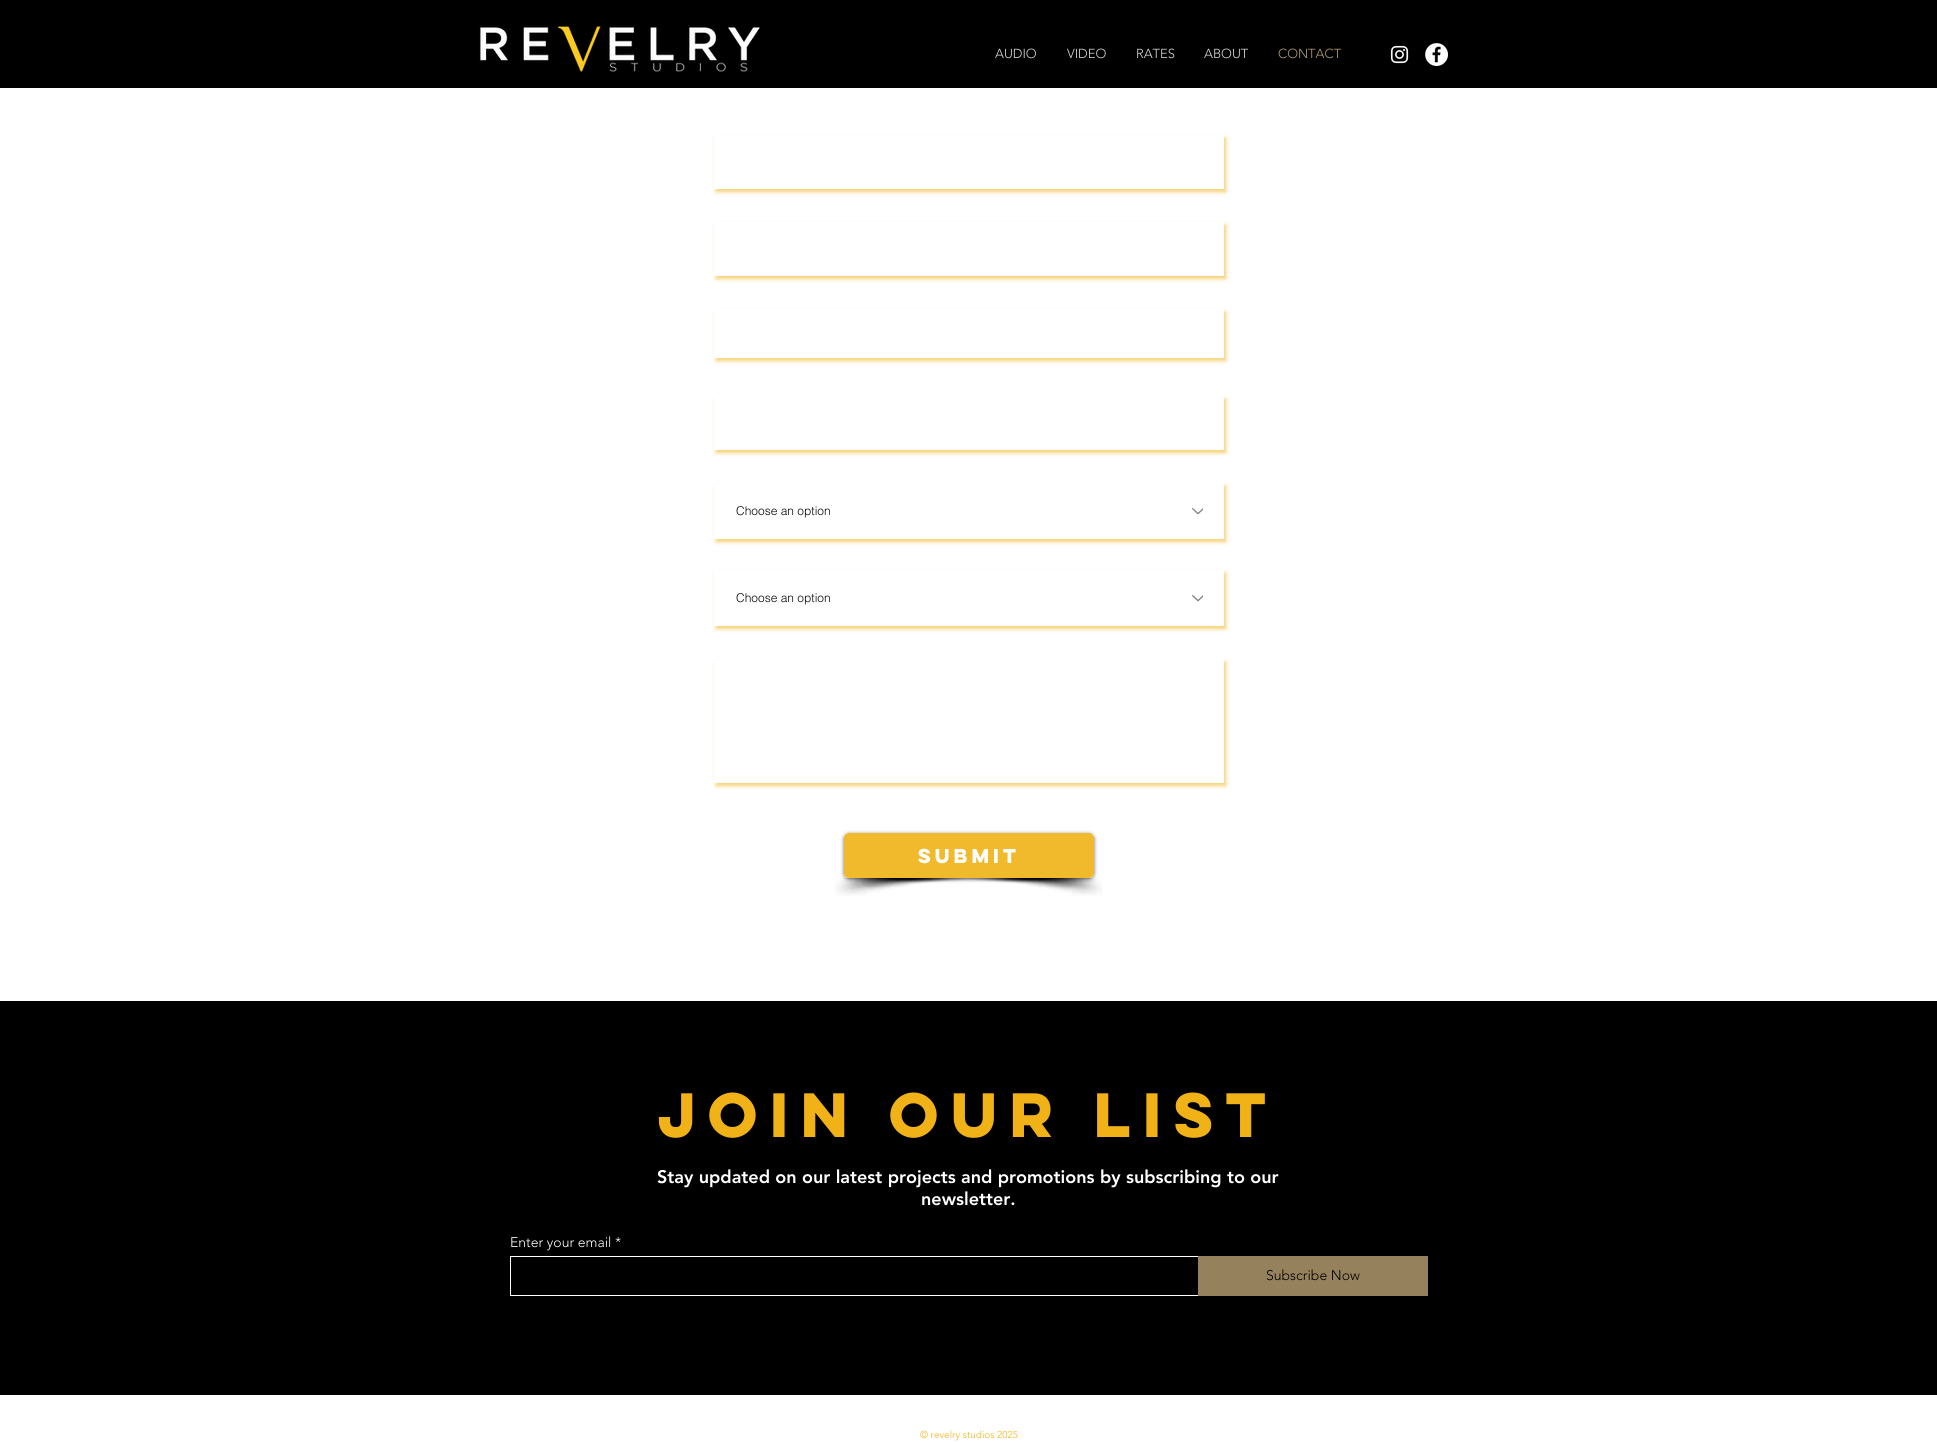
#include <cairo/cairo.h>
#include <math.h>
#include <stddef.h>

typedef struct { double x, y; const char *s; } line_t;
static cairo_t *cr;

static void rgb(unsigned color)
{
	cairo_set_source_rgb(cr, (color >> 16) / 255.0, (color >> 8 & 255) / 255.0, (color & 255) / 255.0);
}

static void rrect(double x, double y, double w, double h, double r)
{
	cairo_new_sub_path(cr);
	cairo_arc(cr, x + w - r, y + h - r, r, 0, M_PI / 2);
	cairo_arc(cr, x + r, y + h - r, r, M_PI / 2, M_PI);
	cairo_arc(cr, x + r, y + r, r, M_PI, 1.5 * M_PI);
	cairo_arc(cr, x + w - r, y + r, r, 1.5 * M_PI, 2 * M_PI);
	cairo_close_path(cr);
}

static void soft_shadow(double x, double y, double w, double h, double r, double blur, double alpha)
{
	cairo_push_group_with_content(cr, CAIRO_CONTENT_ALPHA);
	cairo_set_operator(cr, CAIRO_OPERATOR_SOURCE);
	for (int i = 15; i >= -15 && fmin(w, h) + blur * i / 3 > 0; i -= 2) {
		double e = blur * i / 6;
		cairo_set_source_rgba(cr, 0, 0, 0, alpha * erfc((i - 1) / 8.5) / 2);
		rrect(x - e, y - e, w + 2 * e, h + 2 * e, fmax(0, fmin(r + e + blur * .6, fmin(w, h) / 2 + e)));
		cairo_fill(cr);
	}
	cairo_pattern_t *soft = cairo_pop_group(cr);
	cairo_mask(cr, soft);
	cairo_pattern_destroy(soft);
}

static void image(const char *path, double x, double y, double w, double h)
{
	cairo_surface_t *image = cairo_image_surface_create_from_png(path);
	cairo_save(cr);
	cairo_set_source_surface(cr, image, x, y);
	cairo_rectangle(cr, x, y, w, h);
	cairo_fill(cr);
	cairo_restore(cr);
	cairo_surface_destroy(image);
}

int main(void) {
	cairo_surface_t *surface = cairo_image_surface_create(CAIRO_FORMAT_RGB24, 1937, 1443);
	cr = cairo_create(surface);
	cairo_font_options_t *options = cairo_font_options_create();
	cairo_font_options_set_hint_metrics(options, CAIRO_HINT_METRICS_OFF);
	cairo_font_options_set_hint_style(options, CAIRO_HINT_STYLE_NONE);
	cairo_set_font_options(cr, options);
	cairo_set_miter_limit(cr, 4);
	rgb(0xffffff);
	cairo_paint(cr);
	rgb(0x000000);
	cairo_rectangle(cr, 0, 0, 1937, 88);
	cairo_fill(cr);
	image("img/1.png", 479, 25, 281, 47);
	image("img/2.png", 1390, 45, 19, 19);
	image("img/3.png", 1425, 43, 23, 23);
	cairo_save(cr);
	cairo_set_fill_rule(cr, CAIRO_FILL_RULE_EVEN_ODD);
	cairo_new_path(cr);
	cairo_move_to(cr, 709, 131);
	cairo_line_to(cr, 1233, 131);
	cairo_line_to(cr, 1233, 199);
	cairo_line_to(cr, 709, 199);
	cairo_close_path(cr);
	cairo_move_to(cr, 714, 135);
	cairo_line_to(cr, 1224, 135);
	cairo_line_to(cr, 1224, 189);
	cairo_line_to(cr, 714, 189);
	cairo_close_path(cr);
	cairo_clip(cr);
	rgb(0xf0b216);
	soft_shadow(716, 138, 510, 54, 0, 2, 0.6);
	cairo_restore(cr);
	cairo_save(cr);
	cairo_set_fill_rule(cr, CAIRO_FILL_RULE_EVEN_ODD);
	cairo_new_path(cr);
	cairo_move_to(cr, 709, 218);
	cairo_line_to(cr, 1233, 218);
	cairo_line_to(cr, 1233, 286);
	cairo_line_to(cr, 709, 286);
	cairo_close_path(cr);
	cairo_move_to(cr, 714, 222);
	cairo_line_to(cr, 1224, 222);
	cairo_line_to(cr, 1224, 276);
	cairo_line_to(cr, 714, 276);
	cairo_close_path(cr);
	cairo_clip(cr);
	rgb(0xf0b216);
	soft_shadow(716, 225, 510, 54, 0, 2, 0.6);
	cairo_restore(cr);
	cairo_save(cr);
	cairo_set_fill_rule(cr, CAIRO_FILL_RULE_EVEN_ODD);
	cairo_new_path(cr);
	cairo_move_to(cr, 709, 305);
	cairo_line_to(cr, 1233, 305);
	cairo_line_to(cr, 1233, 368);
	cairo_line_to(cr, 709, 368);
	cairo_close_path(cr);
	cairo_move_to(cr, 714, 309);
	cairo_line_to(cr, 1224, 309);
	cairo_line_to(cr, 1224, 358);
	cairo_line_to(cr, 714, 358);
	cairo_close_path(cr);
	cairo_clip(cr);
	rgb(0xf0b216);
	soft_shadow(716, 312, 510, 49, 0, 2, 0.6);
	cairo_restore(cr);
	cairo_save(cr);
	cairo_set_fill_rule(cr, CAIRO_FILL_RULE_EVEN_ODD);
	cairo_new_path(cr);
	cairo_move_to(cr, 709, 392);
	cairo_line_to(cr, 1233, 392);
	cairo_line_to(cr, 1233, 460);
	cairo_line_to(cr, 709, 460);
	cairo_close_path(cr);
	cairo_move_to(cr, 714, 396);
	cairo_line_to(cr, 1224, 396);
	cairo_line_to(cr, 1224, 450);
	cairo_line_to(cr, 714, 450);
	cairo_close_path(cr);
	cairo_clip(cr);
	rgb(0xf0b216);
	soft_shadow(716, 399, 510, 54, 0, 2, 0.6);
	cairo_restore(cr);
	cairo_save(cr);
	cairo_set_fill_rule(cr, CAIRO_FILL_RULE_EVEN_ODD);
	cairo_new_path(cr);
	cairo_move_to(cr, 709, 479);
	cairo_line_to(cr, 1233, 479);
	cairo_line_to(cr, 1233, 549);
	cairo_line_to(cr, 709, 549);
	cairo_close_path(cr);
	cairo_move_to(cr, 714, 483);
	cairo_line_to(cr, 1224, 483);
	cairo_line_to(cr, 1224, 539);
	cairo_line_to(cr, 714, 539);
	cairo_close_path(cr);
	cairo_clip(cr);
	rgb(0xf0b216);
	soft_shadow(716, 486, 510, 56, 0, 2, 0.6);
	cairo_restore(cr);
	image("img/4.png", 1192, 508, 11, 7);
	cairo_save(cr);
	cairo_set_fill_rule(cr, CAIRO_FILL_RULE_EVEN_ODD);
	cairo_new_path(cr);
	cairo_move_to(cr, 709, 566);
	cairo_line_to(cr, 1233, 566);
	cairo_line_to(cr, 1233, 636);
	cairo_line_to(cr, 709, 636);
	cairo_close_path(cr);
	cairo_move_to(cr, 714, 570);
	cairo_line_to(cr, 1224, 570);
	cairo_line_to(cr, 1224, 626);
	cairo_line_to(cr, 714, 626);
	cairo_close_path(cr);
	cairo_clip(cr);
	rgb(0xf0b216);
	soft_shadow(716, 573, 510, 56, 0, 2, 0.6);
	cairo_restore(cr);
	image("img/4.png", 1192, 595, 11, 7);
	cairo_save(cr);
	cairo_set_fill_rule(cr, CAIRO_FILL_RULE_EVEN_ODD);
	cairo_new_path(cr);
	cairo_move_to(cr, 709, 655);
	cairo_line_to(cr, 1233, 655);
	cairo_line_to(cr, 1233, 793);
	cairo_line_to(cr, 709, 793);
	cairo_close_path(cr);
	cairo_move_to(cr, 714, 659);
	cairo_line_to(cr, 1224, 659);
	cairo_line_to(cr, 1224, 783);
	cairo_line_to(cr, 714, 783);
	cairo_close_path(cr);
	cairo_clip(cr);
	rgb(0xf0b216);
	soft_shadow(716, 662, 510, 124, 0, 2, 0.6);
	cairo_restore(cr);
	image("img/5.png", 835, 878, 154, 18);
	image("img/6.png", 952, 878, 151, 18);
	cairo_save(cr);
	cairo_set_fill_rule(cr, CAIRO_FILL_RULE_EVEN_ODD);
	cairo_new_path(cr);
	cairo_move_to(cr, 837, 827);
	cairo_line_to(cr, 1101, 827);
	cairo_line_to(cr, 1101, 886);
	cairo_line_to(cr, 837, 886);
	cairo_close_path(cr);
	cairo_move_to(cr, 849, 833);
	cairo_line_to(cr, 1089, 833);
	cairo_curve_to(cr, 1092, 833, 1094, 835, 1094, 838);
	cairo_line_to(cr, 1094, 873);
	cairo_curve_to(cr, 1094, 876, 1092, 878, 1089, 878);
	cairo_line_to(cr, 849, 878);
	cairo_curve_to(cr, 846, 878, 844, 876, 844, 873);
	cairo_line_to(cr, 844, 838);
	cairo_curve_to(cr, 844, 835, 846, 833, 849, 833);
	cairo_close_path(cr);
	cairo_clip(cr);
	rgb(0x000000);
	soft_shadow(844, 834, 250, 45, 5, 2, 0.6);
	cairo_restore(cr);
	cairo_set_source_rgba(cr, 0.941, 0.698, 0.086, 0.9);
	rrect(844, 833, 250, 45, 5);
	cairo_fill(cr);
	rgb(0x000000);
	cairo_rectangle(cr, 0, 1001, 1937, 394);
	cairo_fill(cr);
	cairo_rectangle(cr, 510.5, 1256.5, 688, 39);
	rgb(0xffffff);
	cairo_set_line_width(cr, 1);
	cairo_stroke(cr);
	rgb(0x95815b);
	cairo_rectangle(cr, 1198, 1256, 230, 40);
	cairo_fill(cr);
	cairo_select_font_face(cr, "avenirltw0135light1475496 Light", CAIRO_FONT_SLANT_NORMAL, CAIRO_FONT_WEIGHT_NORMAL);
	cairo_set_font_size(cr, 13);
	rgb(0xdbd9d7);
	{
		static const line_t items[] = {
			{995, 58, "AUDIO"},
			{1067, 58, "VIDEO"},
			{1136, 58, "RATES"},
			{1204, 58, "ABOUT"},
		};
		for (size_t i = 0; i < sizeof items / sizeof *items; i++) {
			cairo_move_to(cr, items[i].x, items[i].y);
			cairo_show_text(cr, items[i].s);
		}
	}
	rgb(0xb39f79);
	cairo_move_to(cr, 1278, 58);
	cairo_show_text(cr, "CONTACT");
	cairo_select_font_face(cr, "helvetica Light", CAIRO_FONT_SLANT_NORMAL, CAIRO_FONT_WEIGHT_NORMAL);
	cairo_set_font_size(cr, 12);
	rgb(0x000000);
	cairo_move_to(cr, 736, 515);
	cairo_show_text(cr, "Choose an option");
	cairo_move_to(cr, 736, 602);
	cairo_show_text(cr, "Choose an option");
	cairo_select_font_face(cr, "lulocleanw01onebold", CAIRO_FONT_SLANT_NORMAL, CAIRO_FONT_WEIGHT_BOLD);
	cairo_set_font_size(cr, 18);
	rgb(0xffffff);
	cairo_move_to(cr, 918, 863);
	cairo_show_text(cr, "Submit");
	cairo_set_font_size(cr, 56);
	rgb(0xf0b216);
	cairo_move_to(cr, 658, 1137);
	cairo_show_text(cr, "Join Our List");
	cairo_select_font_face(cr, "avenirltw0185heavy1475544 Black", CAIRO_FONT_SLANT_NORMAL, CAIRO_FONT_WEIGHT_NORMAL);
	cairo_set_font_size(cr, 18);
	rgb(0xffffff);
	cairo_move_to(cr, 657, 1183);
	cairo_show_text(cr, "Stay updated on our latest projects and promotions by subscribing to our");
	cairo_move_to(cr, 921, 1205);
	cairo_show_text(cr, "newsletter.");
	cairo_select_font_face(cr, "avenirltw0135light1475496 Light", CAIRO_FONT_SLANT_NORMAL, CAIRO_FONT_WEIGHT_NORMAL);
	cairo_set_font_size(cr, 14);
	cairo_move_to(cr, 510, 1247);
	cairo_show_text(cr, "Enter your email *");
	rgb(0x000000);
	cairo_move_to(cr, 1266, 1280);
	cairo_show_text(cr, "Subscribe Now");
	cairo_set_font_size(cr, 10);
	rgb(0xf0b216);
	cairo_move_to(cr, 920, 1438);
	cairo_show_text(cr, "© revelry studios 2025");
	cairo_surface_write_to_png(surface, "page.png");
	cairo_font_options_destroy(options);
	cairo_destroy(cr);
	cairo_surface_destroy(surface);
	return 0;
}
